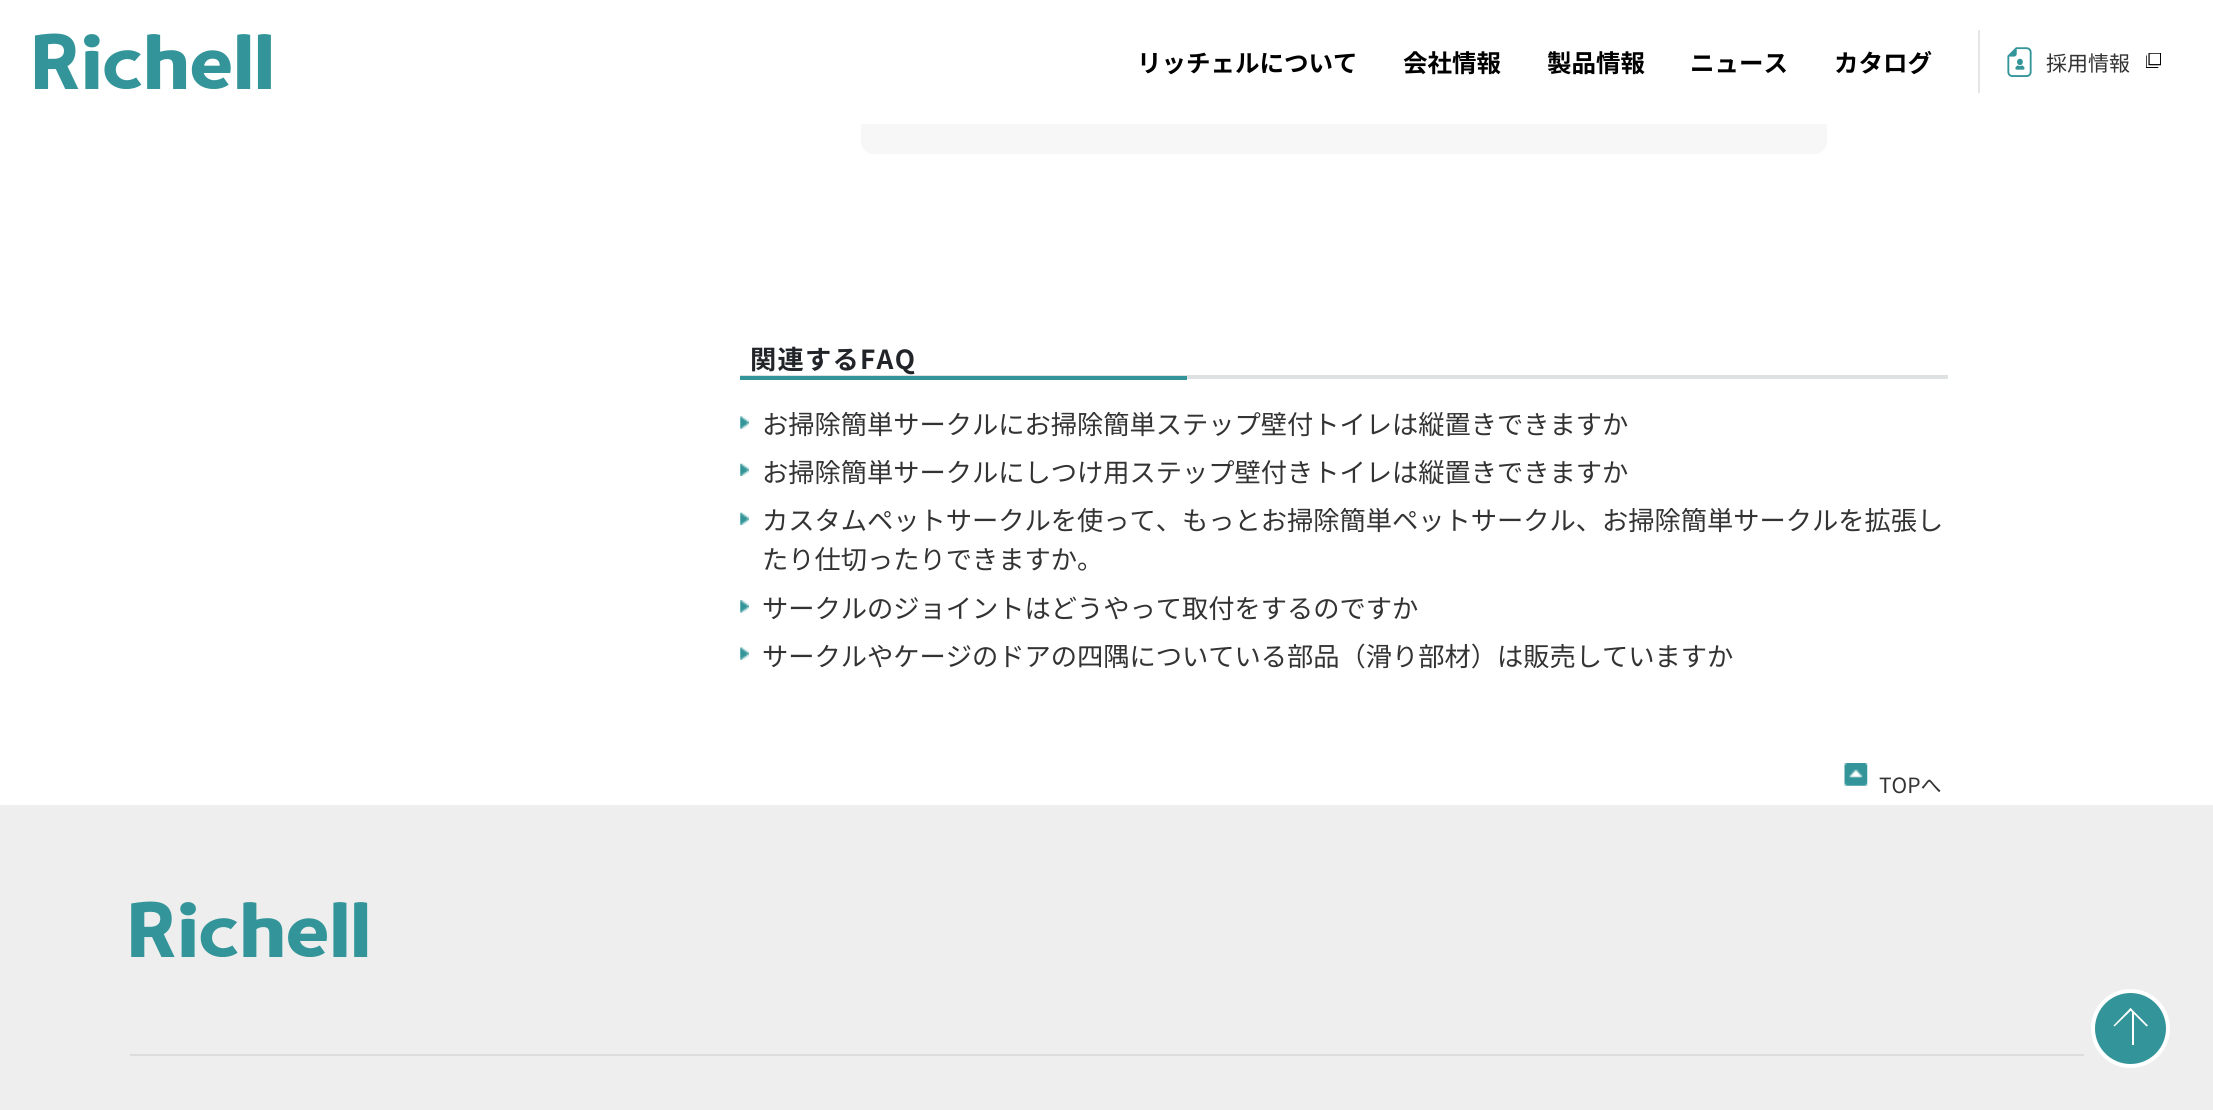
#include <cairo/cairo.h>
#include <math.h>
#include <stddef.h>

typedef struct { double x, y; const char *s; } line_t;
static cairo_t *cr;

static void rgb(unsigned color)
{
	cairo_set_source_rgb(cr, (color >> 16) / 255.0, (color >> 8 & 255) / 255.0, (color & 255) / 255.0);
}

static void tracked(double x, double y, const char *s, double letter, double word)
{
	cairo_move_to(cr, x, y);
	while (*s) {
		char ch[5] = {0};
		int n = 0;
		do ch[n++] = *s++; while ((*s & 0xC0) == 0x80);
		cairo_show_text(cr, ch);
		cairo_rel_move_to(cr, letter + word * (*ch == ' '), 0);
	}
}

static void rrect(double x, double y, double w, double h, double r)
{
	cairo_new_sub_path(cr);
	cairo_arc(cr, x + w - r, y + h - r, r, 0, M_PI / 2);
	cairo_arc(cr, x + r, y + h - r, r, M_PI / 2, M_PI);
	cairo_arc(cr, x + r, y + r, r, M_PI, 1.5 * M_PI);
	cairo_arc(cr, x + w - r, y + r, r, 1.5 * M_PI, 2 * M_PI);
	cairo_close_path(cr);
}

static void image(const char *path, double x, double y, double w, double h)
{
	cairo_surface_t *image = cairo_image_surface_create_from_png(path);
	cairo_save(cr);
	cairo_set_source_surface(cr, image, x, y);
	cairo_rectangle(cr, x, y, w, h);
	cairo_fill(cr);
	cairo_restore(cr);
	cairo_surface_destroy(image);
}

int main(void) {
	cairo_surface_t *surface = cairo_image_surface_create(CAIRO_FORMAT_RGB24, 2213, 1110);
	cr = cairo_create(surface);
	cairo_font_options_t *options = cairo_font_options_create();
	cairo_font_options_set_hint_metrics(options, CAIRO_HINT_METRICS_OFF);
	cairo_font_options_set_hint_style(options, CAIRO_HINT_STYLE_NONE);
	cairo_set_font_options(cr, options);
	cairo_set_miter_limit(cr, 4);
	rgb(0xffffff);
	cairo_paint(cr);
	rgb(0xf7f7f7);
	rrect(861, -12, 966, 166, 12);
	cairo_fill(cr);
	rgb(0xffffff);
	cairo_rectangle(cr, 861, 0, 966, 124);
	cairo_fill(cr);
	image("img/1.png", 34, 33, 237, 56);
	rgb(0xe6e6e5);
	cairo_rectangle(cr, 1978, 30, 2, 63);
	cairo_fill(cr);
	image("img/2.png", 2007, 47, 25, 30);
	image("img/3.png", 2146, 53, 15, 15);
	rgb(0xdee1e2);
	cairo_rectangle(cr, 740, 375, 1208, 4);
	cairo_fill(cr);
	rgb(0x339599);
	cairo_rectangle(cr, 740, 376, 447, 4);
	cairo_fill(cr);
	image("img/4.png", 740, 416, 9, 13);
	image("img/5.png", 740, 463, 9, 13);
	image("img/5.png", 740, 512, 9, 13);
	image("img/6.png", 740, 600, 9, 13);
	image("img/4.png", 740, 647, 9, 13);
	image("img/7.png", 1844, 763, 24, 23);
	rgb(0xeeeeee);
	cairo_rectangle(cr, 0, 805, 2213, 305);
	cairo_fill(cr);
	image("img/8.png", 131, 901, 237, 56);
	rgb(0xdcdcdc);
	cairo_rectangle(cr, 130, 1054, 1954, 2);
	cairo_fill(cr);
	rgb(0x339599);
	cairo_arc(cr, 2130.5, 1028.5, 37.5, 0, 2 * M_PI);
	cairo_fill_preserve(cr);
	rgb(0xffffff);
	cairo_set_line_width(cr, 4);
	cairo_stroke(cr);
	cairo_new_path(cr);
	cairo_move_to(cr, 2113.5, 1025.5);
	cairo_line_to(cr, 2130.5, 1008);
	cairo_line_to(cr, 2132, 1009.5);
	cairo_line_to(cr, 2114.5, 1026.5);
	cairo_close_path(cr);
	cairo_fill(cr);
	cairo_new_path(cr);
	cairo_move_to(cr, 2129.5, 1009.5);
	cairo_line_to(cr, 2130.5, 1008);
	cairo_line_to(cr, 2148, 1025.5);
	cairo_line_to(cr, 2146.5, 1026.5);
	cairo_close_path(cr);
	cairo_fill(cr);
	cairo_rectangle(cr, 2132, 1012, 2, 33);
	cairo_fill(cr);
	cairo_select_font_face(cr, "Noto Sans JP", CAIRO_FONT_SLANT_NORMAL, CAIRO_FONT_WEIGHT_BOLD);
	cairo_set_font_size(cr, 24.5);
	rgb(0x000000);
	{
		static const line_t items[] = {
			{1137, 72, "リッチェルについて"},
			{1403, 72, "会社情報"},
			{1547, 72, "製品情報"},
			{1690, 72, "ニュース"},
			{1834, 72, "カタログ"},
		};
		for (size_t i = 0; i < sizeof items / sizeof *items; i++) {
			cairo_move_to(cr, items[i].x, items[i].y);
			cairo_show_text(cr, items[i].s);
		}
	}
	cairo_select_font_face(cr, "Noto Sans JP", CAIRO_FONT_SLANT_NORMAL, CAIRO_FONT_WEIGHT_NORMAL);
	cairo_set_font_size(cr, 21);
	rgb(0x333333);
	cairo_move_to(cr, 2046, 71);
	cairo_show_text(cr, "採用情報");
	cairo_select_font_face(cr, "Noto Sans JP", CAIRO_FONT_SLANT_NORMAL, CAIRO_FONT_WEIGHT_BOLD);
	cairo_set_font_size(cr, 26.25);
	rgb(0x212529);
	tracked(750, 369, "関連するFAQ", 1.25, 0);
	cairo_select_font_face(cr, "Noto Sans JP", CAIRO_FONT_SLANT_NORMAL, CAIRO_FONT_WEIGHT_NORMAL);
	rgb(0x333333);
	{
		static const line_t items[] = {
			{762, 434, "お掃除簡単サークルにお掃除簡単ステップ壁付トイレは縦置きできますか"},
			{762, 482, "お掃除簡単サークルにしつけ用ステップ壁付きトイレは縦置きできますか"},
			{762, 530, "カスタムペットサークルを使って、もっとお掃除簡単ペットサークル、お掃除簡単サークルを拡張し"},
			{762, 569, "たり仕切ったりできますか。"},
			{762, 618, "サークルのジョイントはどうやって取付をするのですか"},
			{762, 666, "サークルやケージのドアの四隅についている部品（滑り部材）は販売していますか"},
		};
		for (size_t i = 0; i < sizeof items / sizeof *items; i++) {
			cairo_move_to(cr, items[i].x, items[i].y);
			cairo_show_text(cr, items[i].s);
		}
	}
	cairo_set_font_size(cr, 21);
	cairo_move_to(cr, 1879, 793);
	cairo_show_text(cr, "TOPへ");
	cairo_surface_write_to_png(surface, "page.png");
	cairo_font_options_destroy(options);
	cairo_destroy(cr);
	cairo_surface_destroy(surface);
	return 0;
}
